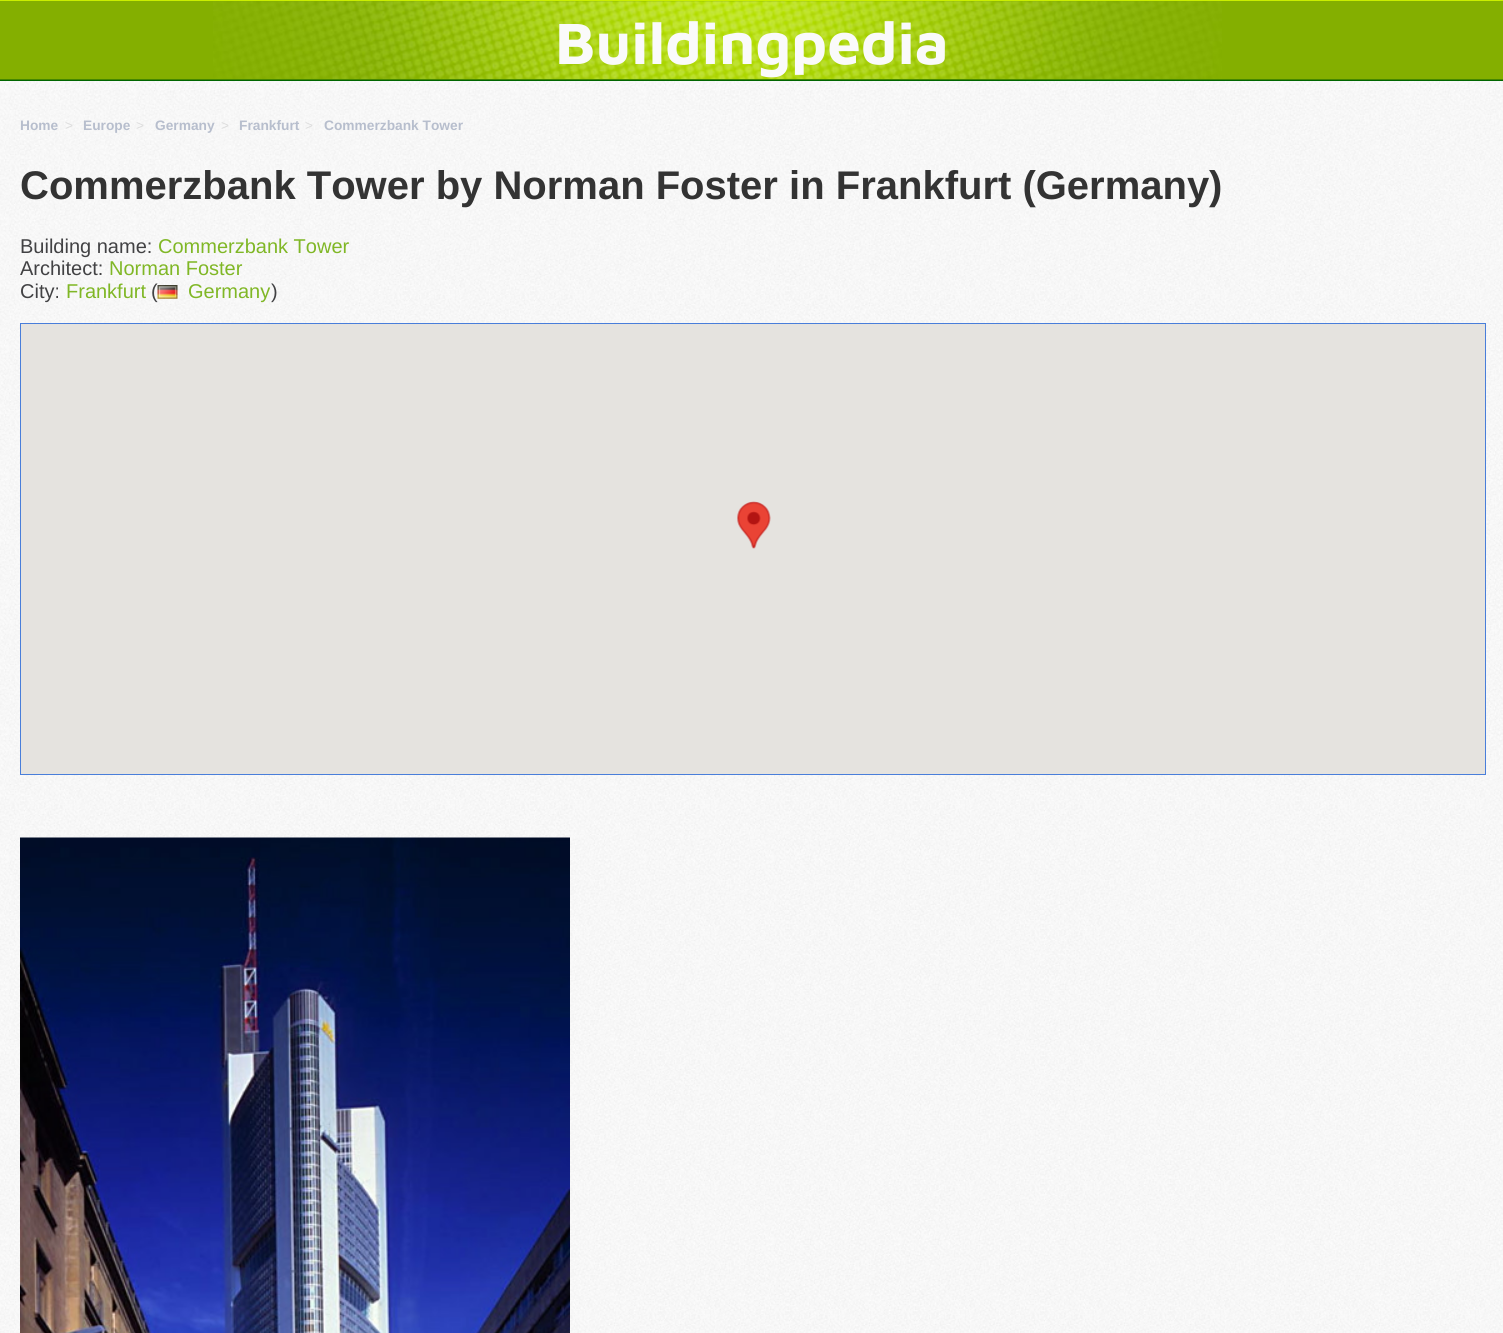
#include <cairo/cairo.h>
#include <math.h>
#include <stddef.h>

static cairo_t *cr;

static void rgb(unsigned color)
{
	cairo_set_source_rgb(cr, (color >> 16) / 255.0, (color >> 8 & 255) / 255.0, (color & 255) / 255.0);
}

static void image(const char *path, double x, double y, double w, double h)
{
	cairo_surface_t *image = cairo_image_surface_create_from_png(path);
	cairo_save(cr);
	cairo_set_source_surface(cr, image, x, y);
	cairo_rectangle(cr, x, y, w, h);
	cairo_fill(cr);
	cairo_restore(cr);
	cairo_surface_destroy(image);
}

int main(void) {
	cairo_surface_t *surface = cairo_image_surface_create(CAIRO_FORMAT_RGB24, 1503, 1333);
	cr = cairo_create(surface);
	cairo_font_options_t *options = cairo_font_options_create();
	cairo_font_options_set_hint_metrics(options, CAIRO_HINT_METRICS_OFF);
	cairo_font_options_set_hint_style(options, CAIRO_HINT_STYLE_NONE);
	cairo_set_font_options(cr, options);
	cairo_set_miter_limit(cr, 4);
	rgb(0x84af00);
	cairo_paint(cr);
	image("img/1.png", 213, 1, 1009, 78);
	rgb(0xcaee01);
	cairo_rectangle(cr, 0, 0, 1503, 1);
	cairo_fill(cr);
	rgb(0x468701);
	cairo_rectangle(cr, 0, 79, 1503, 1);
	cairo_fill(cr);
	image("img/2.png", 0, 81, 1503, 1252);
	rgb(0x006600);
	cairo_rectangle(cr, 0, 80, 1503, 1);
	cairo_fill(cr);
	cairo_rectangle(cr, 20.5, 323.5, 1465, 451);
	rgb(0x497eda);
	cairo_set_line_width(cr, 1);
	cairo_stroke(cr);
	rgb(0xe5e3df);
	cairo_rectangle(cr, 21, 324, 1464, 450);
	cairo_fill(cr);
	image("img/4.png", 737, 501, 34, 48);
	image("img/5.png", 20, 837, 550, 496);
	cairo_select_font_face(cr, "Maven Pro", CAIRO_FONT_SLANT_NORMAL, CAIRO_FONT_WEIGHT_BOLD);
	cairo_set_font_size(cr, 60);
	rgb(0xfafafa);
	cairo_move_to(cr, 555, 64);
	cairo_show_text(cr, "Buildingpedia");
	cairo_select_font_face(cr, "Liberation Sans", CAIRO_FONT_SLANT_NORMAL, CAIRO_FONT_WEIGHT_BOLD);
	cairo_set_font_size(cr, 13.75);
	rgb(0xb7becd);
	cairo_move_to(cr, 20, 130);
	cairo_show_text(cr, "Home");
	cairo_select_font_face(cr, "Liberation Sans", CAIRO_FONT_SLANT_NORMAL, CAIRO_FONT_WEIGHT_NORMAL);
	rgb(0xdddddd);
	cairo_move_to(cr, 65, 130);
	cairo_show_text(cr, ">");
	cairo_select_font_face(cr, "Liberation Sans", CAIRO_FONT_SLANT_NORMAL, CAIRO_FONT_WEIGHT_BOLD);
	rgb(0xb7becd);
	cairo_move_to(cr, 83, 130);
	cairo_show_text(cr, "Europe");
	cairo_select_font_face(cr, "Liberation Sans", CAIRO_FONT_SLANT_NORMAL, CAIRO_FONT_WEIGHT_NORMAL);
	rgb(0xdddddd);
	cairo_move_to(cr, 136, 130);
	cairo_show_text(cr, ">");
	cairo_select_font_face(cr, "Liberation Sans", CAIRO_FONT_SLANT_NORMAL, CAIRO_FONT_WEIGHT_BOLD);
	rgb(0xb7becd);
	cairo_move_to(cr, 155, 130);
	cairo_show_text(cr, "Germany");
	cairo_select_font_face(cr, "Liberation Sans", CAIRO_FONT_SLANT_NORMAL, CAIRO_FONT_WEIGHT_NORMAL);
	rgb(0xdddddd);
	cairo_move_to(cr, 221, 130);
	cairo_show_text(cr, ">");
	cairo_select_font_face(cr, "Liberation Sans", CAIRO_FONT_SLANT_NORMAL, CAIRO_FONT_WEIGHT_BOLD);
	rgb(0xb7becd);
	cairo_move_to(cr, 239, 130);
	cairo_show_text(cr, "Frankfurt");
	cairo_select_font_face(cr, "Liberation Sans", CAIRO_FONT_SLANT_NORMAL, CAIRO_FONT_WEIGHT_NORMAL);
	rgb(0xdddddd);
	cairo_move_to(cr, 305, 130);
	cairo_show_text(cr, ">");
	cairo_select_font_face(cr, "Liberation Sans", CAIRO_FONT_SLANT_NORMAL, CAIRO_FONT_WEIGHT_BOLD);
	rgb(0xb7becd);
	cairo_move_to(cr, 324, 130);
	cairo_show_text(cr, "Commerzbank Tower");
	cairo_set_font_size(cr, 40);
	rgb(0x333333);
	cairo_move_to(cr, 20, 199);
	cairo_show_text(cr, "Commerzbank Tower by Norman Foster in Frankfurt (Germany)");
	cairo_select_font_face(cr, "Liberation Sans", CAIRO_FONT_SLANT_NORMAL, CAIRO_FONT_WEIGHT_NORMAL);
	cairo_set_font_size(cr, 20);
	rgb(0x424244);
	cairo_move_to(cr, 20, 253);
	cairo_show_text(cr, "Building name:");
	rgb(0x80b726);
	cairo_move_to(cr, 158, 253);
	cairo_show_text(cr, "Commerzbank Tower");
	rgb(0x424244);
	cairo_move_to(cr, 20, 275);
	cairo_show_text(cr, "Architect:");
	rgb(0x80b726);
	cairo_move_to(cr, 109, 275);
	cairo_show_text(cr, "Norman Foster");
	rgb(0x424244);
	cairo_move_to(cr, 20, 298);
	cairo_show_text(cr, "City:");
	rgb(0x80b726);
	cairo_move_to(cr, 66, 298);
	cairo_show_text(cr, "Frankfurt");
	rgb(0x424244);
	cairo_move_to(cr, 151, 298);
	cairo_show_text(cr, "(");
	image("img/3.png", 157, 285, 21, 14);
	rgb(0x80b726);
	cairo_move_to(cr, 188, 298);
	cairo_show_text(cr, "Germany");
	rgb(0x424244);
	cairo_move_to(cr, 271, 298);
	cairo_show_text(cr, ")");
	cairo_surface_write_to_png(surface, "page.png");
	cairo_font_options_destroy(options);
	cairo_destroy(cr);
	cairo_surface_destroy(surface);
	return 0;
}
